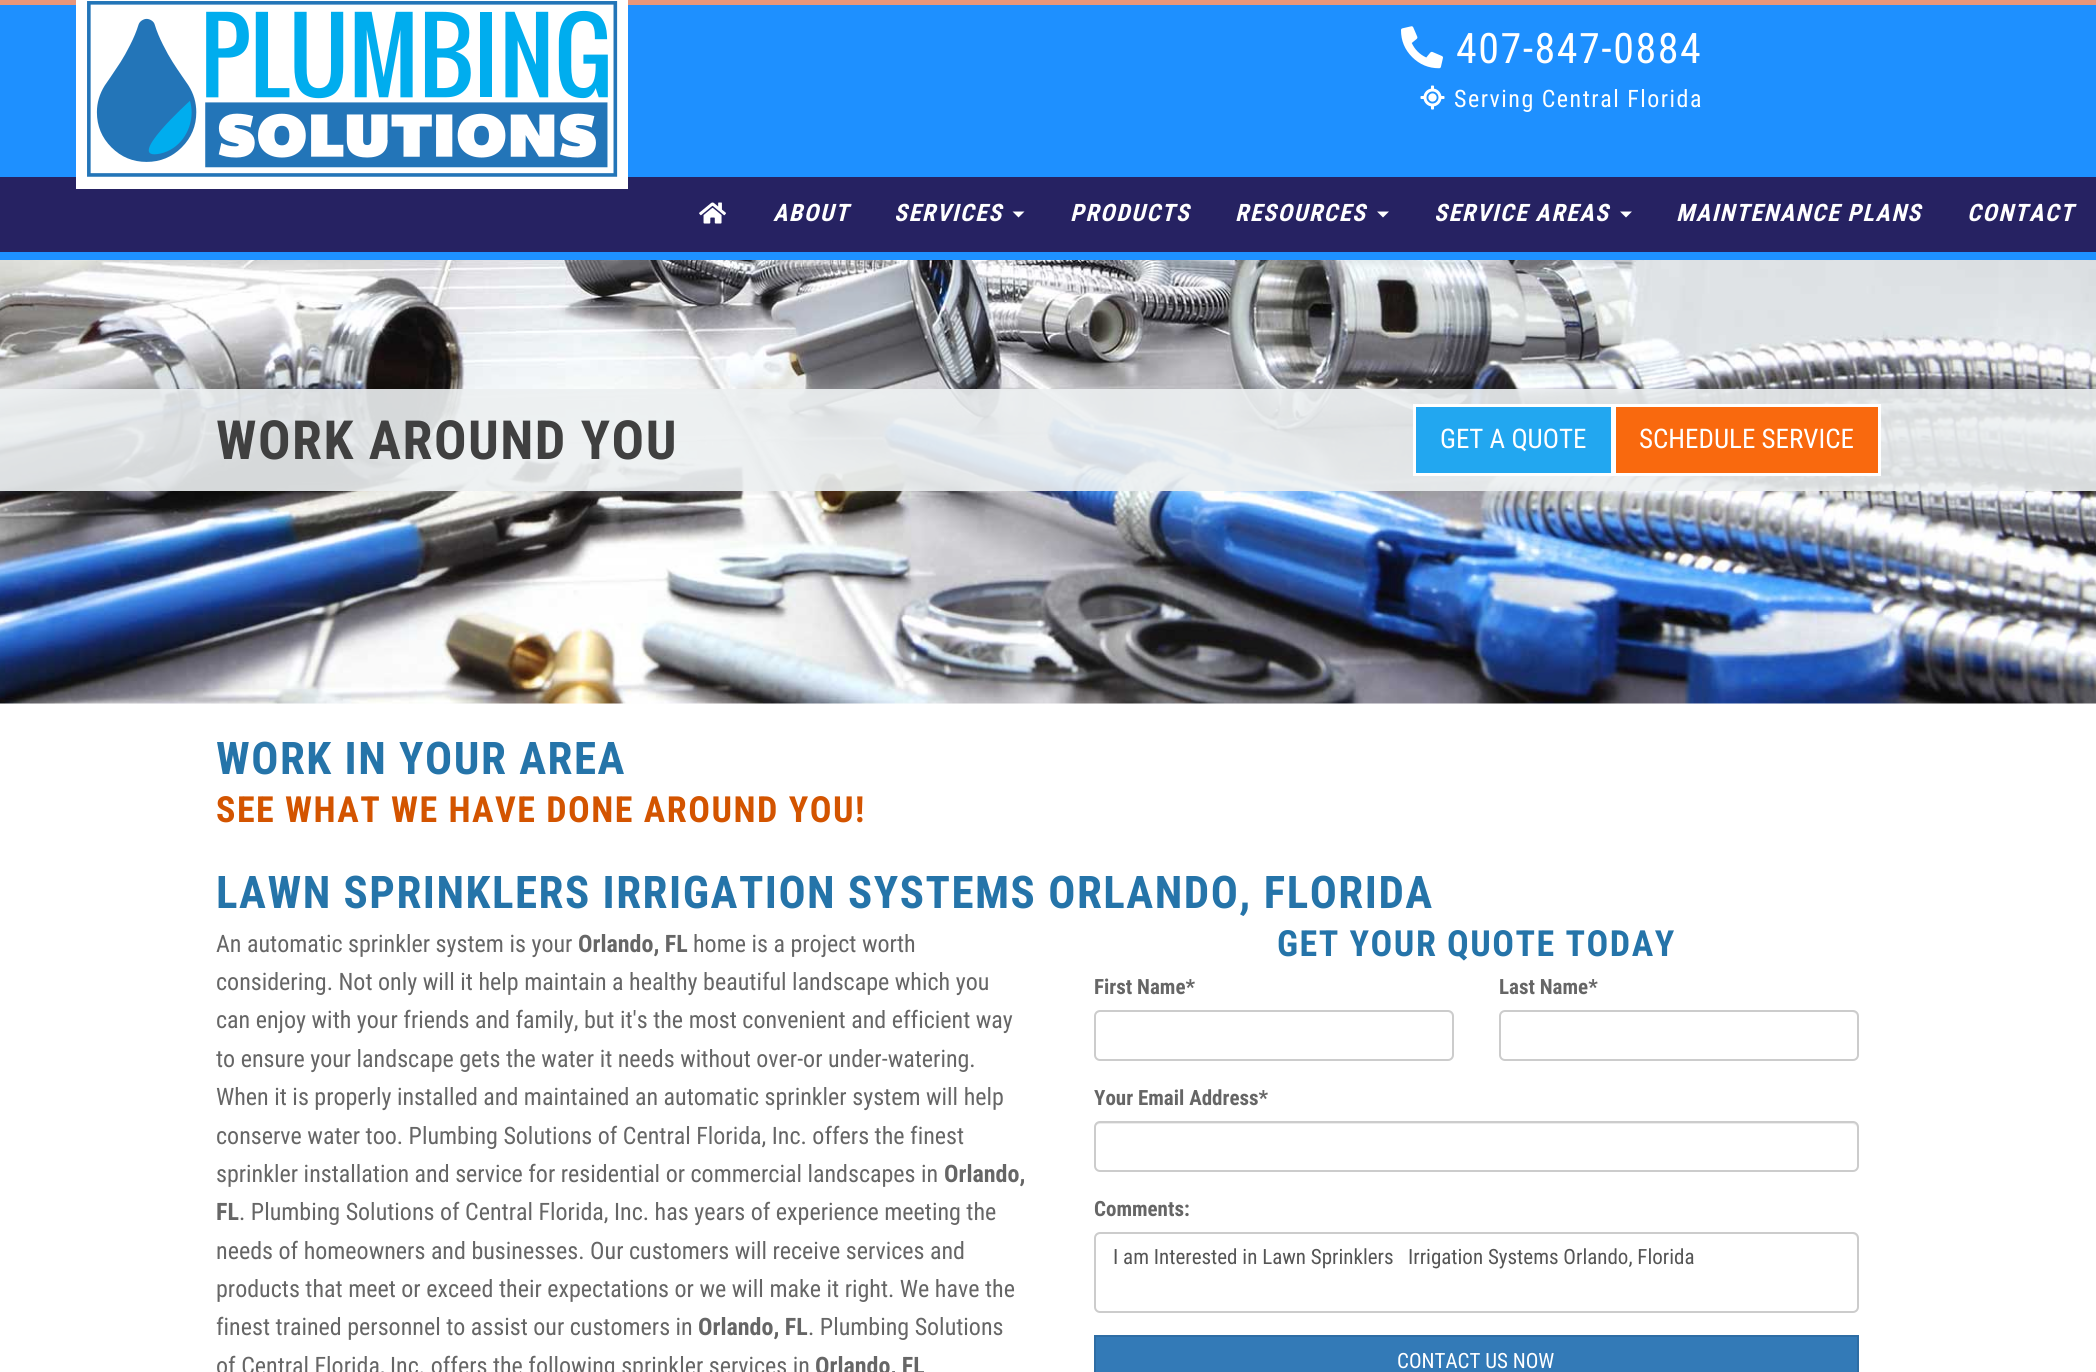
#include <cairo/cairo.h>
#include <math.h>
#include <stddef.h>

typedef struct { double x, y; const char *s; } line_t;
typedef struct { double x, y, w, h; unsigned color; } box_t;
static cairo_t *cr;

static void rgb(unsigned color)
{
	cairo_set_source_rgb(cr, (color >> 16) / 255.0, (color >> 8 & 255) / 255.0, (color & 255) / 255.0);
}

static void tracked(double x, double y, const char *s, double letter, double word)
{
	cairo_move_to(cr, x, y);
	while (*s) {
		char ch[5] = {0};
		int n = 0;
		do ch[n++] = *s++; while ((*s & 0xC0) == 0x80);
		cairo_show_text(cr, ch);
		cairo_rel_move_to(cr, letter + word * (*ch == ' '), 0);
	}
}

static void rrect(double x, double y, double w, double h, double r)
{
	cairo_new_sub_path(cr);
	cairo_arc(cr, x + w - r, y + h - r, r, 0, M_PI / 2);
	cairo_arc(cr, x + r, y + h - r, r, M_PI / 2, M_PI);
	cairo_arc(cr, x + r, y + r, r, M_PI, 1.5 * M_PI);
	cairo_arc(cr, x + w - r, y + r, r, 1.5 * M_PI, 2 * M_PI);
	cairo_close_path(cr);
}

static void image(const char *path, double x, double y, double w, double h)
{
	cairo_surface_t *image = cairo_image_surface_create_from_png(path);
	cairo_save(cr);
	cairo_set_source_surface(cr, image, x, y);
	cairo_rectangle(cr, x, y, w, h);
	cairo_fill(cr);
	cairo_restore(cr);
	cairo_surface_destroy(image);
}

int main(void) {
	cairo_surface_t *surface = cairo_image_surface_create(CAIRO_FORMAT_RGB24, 2096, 1372);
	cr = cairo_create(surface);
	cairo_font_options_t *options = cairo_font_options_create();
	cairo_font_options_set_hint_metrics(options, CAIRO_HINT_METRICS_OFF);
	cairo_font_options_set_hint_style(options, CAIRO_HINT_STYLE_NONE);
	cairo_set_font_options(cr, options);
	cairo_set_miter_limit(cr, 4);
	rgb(0xffffff);
	cairo_paint(cr);
	{
		static const box_t items[] = {
			{0, 5, 2096, 255, 0x1e90ff},
			{0, 0, 2096, 5, 0xe9967a},
			{0, 177, 2096, 75, 0x262262},
		};
		for (size_t i = 0; i < sizeof items / sizeof *items; i++) {
			rgb(items[i].color);
			cairo_rectangle(cr, items[i].x, items[i].y, items[i].w, items[i].h);
			cairo_fill(cr);
		}
	}
	image("img/1.png", 76, 0, 552, 189);
	image("img/2.png", 1401, 26, 42, 43);
	image("img/3.png", 1420, 85, 25, 25);
	image("img/4.png", 699, 202, 27, 22);
	rgb(0xffffff);
	cairo_new_path(cr);
	cairo_move_to(cr, 1012.5, 211.5);
	cairo_line_to(cr, 1024.5, 211.5);
	cairo_line_to(cr, 1018.5, 217.5);
	cairo_close_path(cr);
	cairo_fill(cr);
	cairo_new_path(cr);
	cairo_move_to(cr, 1377, 211.5);
	cairo_line_to(cr, 1389, 211.5);
	cairo_line_to(cr, 1383, 217.5);
	cairo_close_path(cr);
	cairo_fill(cr);
	cairo_new_path(cr);
	cairo_move_to(cr, 1620, 211.5);
	cairo_line_to(cr, 1632, 211.5);
	cairo_line_to(cr, 1626, 217.5);
	cairo_close_path(cr);
	cairo_fill(cr);
	image("img/5.png", 0, 260, 2096, 444);
	cairo_set_source_rgba(cr, 0.925, 0.941, 0.945, 0.9);
	cairo_rectangle(cr, 0, 389, 2096, 102);
	cairo_fill(cr);
	rgb(0x22a7f0);
	cairo_rectangle(cr, 1414.5, 405.5, 198, 69);
	cairo_fill_preserve(cr);
	rgb(0xffffff);
	cairo_set_line_width(cr, 3);
	cairo_stroke(cr);
	rgb(0xf9690e);
	cairo_rectangle(cr, 1614.5, 405.5, 265, 69);
	cairo_fill_preserve(cr);
	rgb(0xffffff);
	cairo_stroke(cr);
	rgb(0xececec);
	cairo_new_path(cr);
	cairo_move_to(cr, 1100, 1012);
	cairo_line_to(cr, 1448, 1012);
	cairo_curve_to(cr, 1450, 1012, 1452, 1015, 1452, 1017);
	cairo_curve_to(cr, 1452, 1014, 1450, 1011, 1447, 1011);
	cairo_line_to(cr, 1100, 1011);
	cairo_curve_to(cr, 1097, 1011, 1095, 1014, 1095, 1017);
	cairo_curve_to(cr, 1095, 1015, 1097, 1012, 1100, 1012);
	cairo_close_path(cr);
	cairo_fill(cr);
	rrect(1095, 1011, 358, 49, 5);
	rgb(0xcccccc);
	cairo_set_line_width(cr, 2);
	cairo_stroke(cr);
	rgb(0xececec);
	cairo_new_path(cr);
	cairo_move_to(cr, 1504, 1012);
	cairo_line_to(cr, 1852, 1012);
	cairo_curve_to(cr, 1855, 1012, 1857, 1015, 1857, 1017);
	cairo_curve_to(cr, 1857, 1014, 1855, 1011, 1852, 1011);
	cairo_line_to(cr, 1505, 1011);
	cairo_curve_to(cr, 1502, 1011, 1500, 1014, 1500, 1017);
	cairo_curve_to(cr, 1500, 1015, 1502, 1012, 1504, 1012);
	cairo_close_path(cr);
	cairo_fill(cr);
	rrect(1500, 1011, 358, 49, 5);
	rgb(0xcccccc);
	cairo_stroke(cr);
	rgb(0xececec);
	cairo_new_path(cr);
	cairo_move_to(cr, 1100, 1124);
	cairo_line_to(cr, 1852, 1124);
	cairo_curve_to(cr, 1855, 1124, 1857, 1126, 1857, 1128);
	cairo_line_to(cr, 1857, 1127);
	cairo_curve_to(cr, 1857, 1124, 1855, 1122, 1852, 1122);
	cairo_line_to(cr, 1100, 1122);
	cairo_curve_to(cr, 1097, 1122, 1095, 1124, 1095, 1127);
	cairo_line_to(cr, 1095, 1128);
	cairo_curve_to(cr, 1095, 1126, 1097, 1124, 1100, 1124);
	cairo_close_path(cr);
	cairo_fill(cr);
	rrect(1095, 1122, 763, 49, 5);
	rgb(0xcccccc);
	cairo_stroke(cr);
	rgb(0xececec);
	cairo_new_path(cr);
	cairo_move_to(cr, 1100, 1234);
	cairo_line_to(cr, 1852, 1234);
	cairo_curve_to(cr, 1855, 1234, 1857, 1237, 1857, 1239);
	cairo_line_to(cr, 1857, 1238);
	cairo_curve_to(cr, 1857, 1235, 1855, 1233, 1852, 1233);
	cairo_line_to(cr, 1100, 1233);
	cairo_curve_to(cr, 1097, 1233, 1095, 1235, 1095, 1238);
	cairo_line_to(cr, 1095, 1239);
	cairo_curve_to(cr, 1095, 1237, 1097, 1234, 1100, 1234);
	cairo_close_path(cr);
	cairo_fill(cr);
	rrect(1095, 1233, 763, 79, 5);
	rgb(0xcccccc);
	cairo_stroke(cr);
	rgb(0x337ab7);
	cairo_rectangle(cr, 1095, 1336, 763, 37);
	cairo_fill_preserve(cr);
	rgb(0x2e6da4);
	cairo_stroke(cr);
	cairo_select_font_face(cr, "Roboto Condensed", CAIRO_FONT_SLANT_NORMAL, CAIRO_FONT_WEIGHT_NORMAL);
	cairo_set_font_size(cr, 42);
	rgb(0xffffff);
	tracked(1456, 63, "407-847-0884", 1.5, 0);
	cairo_set_font_size(cr, 24);
	tracked(1454, 107, "Serving Central Florida", 1.5, 0);
	cairo_select_font_face(cr, "Roboto Condensed", CAIRO_FONT_SLANT_ITALIC, CAIRO_FONT_WEIGHT_BOLD);
	{
		static const line_t items[] = {
			{773, 221, "ABOUT"},
			{894, 221, "SERVICES"},
			{1070, 221, "PRODUCTS"},
			{1235, 221, "RESOURCES"},
			{1434, 221, "SERVICE AREAS"},
			{1676, 221, "MAINTENANCE PLANS"},
			{1967, 221, "CONTACT"},
		};
		for (size_t i = 0; i < sizeof items / sizeof *items; i++) {
			tracked(items[i].x, items[i].y, items[i].s, 1.5, 0);
		}
	}
	cairo_select_font_face(cr, "Roboto Condensed", CAIRO_FONT_SLANT_NORMAL, CAIRO_FONT_WEIGHT_BOLD);
	cairo_set_font_size(cr, 54);
	rgb(0x404040);
	tracked(216, 459, "WORK AROUND YOU", 1.5, 0);
	cairo_select_font_face(cr, "Roboto Condensed", CAIRO_FONT_SLANT_NORMAL, CAIRO_FONT_WEIGHT_NORMAL);
	cairo_set_font_size(cr, 27);
	rgb(0xffffff);
	cairo_move_to(cr, 1440, 448);
	cairo_show_text(cr, "GET A QUOTE");
	cairo_move_to(cr, 1639, 448);
	cairo_show_text(cr, "SCHEDULE SERVICE");
	cairo_select_font_face(cr, "Roboto Condensed", CAIRO_FONT_SLANT_NORMAL, CAIRO_FONT_WEIGHT_BOLD);
	cairo_set_font_size(cr, 45);
	rgb(0x2574a9);
	tracked(216, 774, "WORK IN YOUR AREA", 1.5, 0);
	cairo_set_font_size(cr, 36);
	rgb(0xd35400);
	tracked(216, 822, "SEE WHAT WE HAVE DONE AROUND YOU!", 1.5, 0);
	cairo_set_font_size(cr, 45);
	rgb(0x2574a9);
	tracked(216, 908, "LAWN SPRINKLERS IRRIGATION SYSTEMS ORLANDO, FLORIDA", 1.5, 0);
	cairo_select_font_face(cr, "Roboto Condensed", CAIRO_FONT_SLANT_NORMAL, CAIRO_FONT_WEIGHT_NORMAL);
	cairo_set_font_size(cr, 24);
	rgb(0x666666);
	cairo_move_to(cr, 216, 952);
	cairo_show_text(cr, "An automatic sprinkler system is your");
	cairo_select_font_face(cr, "Roboto Condensed", CAIRO_FONT_SLANT_NORMAL, CAIRO_FONT_WEIGHT_BOLD);
	cairo_move_to(cr, 578, 952);
	cairo_show_text(cr, "Orlando, FL");
	cairo_select_font_face(cr, "Roboto Condensed", CAIRO_FONT_SLANT_NORMAL, CAIRO_FONT_WEIGHT_NORMAL);
	{
		static const line_t items[] = {
			{693, 952, "home is a project worth"},
			{216, 990, "considering. Not only will it help maintain a healthy beautiful landscape which you"},
			{216, 1028, "can enjoy with your friends and family, but it's the most convenient and efficient way"},
			{216, 1067, "to ensure your landscape gets the water it needs without over-or under-watering."},
			{216, 1105, "When it is properly installed and maintained an automatic sprinkler system will help"},
			{216, 1144, "conserve water too. Plumbing Solutions of Central Florida, Inc. offers the finest"},
			{216, 1182, "sprinkler installation and service for residential or commercial landscapes in"},
		};
		for (size_t i = 0; i < sizeof items / sizeof *items; i++) {
			cairo_move_to(cr, items[i].x, items[i].y);
			cairo_show_text(cr, items[i].s);
		}
	}
	cairo_select_font_face(cr, "Roboto Condensed", CAIRO_FONT_SLANT_NORMAL, CAIRO_FONT_WEIGHT_BOLD);
	cairo_move_to(cr, 944, 1182);
	cairo_show_text(cr, "Orlando,");
	cairo_move_to(cr, 216, 1220);
	cairo_show_text(cr, "FL");
	cairo_select_font_face(cr, "Roboto Condensed", CAIRO_FONT_SLANT_NORMAL, CAIRO_FONT_WEIGHT_NORMAL);
	{
		static const line_t items[] = {
			{239, 1220, ". Plumbing Solutions of Central Florida, Inc. has years of experience meeting the"},
			{216, 1259, "needs of homeowners and businesses. Our customers will receive services and"},
			{216, 1297, "products that meet or exceed their expectations or we will make it right. We have the"},
			{216, 1335, "finest trained personnel to assist our customers in"},
		};
		for (size_t i = 0; i < sizeof items / sizeof *items; i++) {
			cairo_move_to(cr, items[i].x, items[i].y);
			cairo_show_text(cr, items[i].s);
		}
	}
	cairo_select_font_face(cr, "Roboto Condensed", CAIRO_FONT_SLANT_NORMAL, CAIRO_FONT_WEIGHT_BOLD);
	cairo_move_to(cr, 698, 1335);
	cairo_show_text(cr, "Orlando, FL");
	cairo_select_font_face(cr, "Roboto Condensed", CAIRO_FONT_SLANT_NORMAL, CAIRO_FONT_WEIGHT_NORMAL);
	cairo_move_to(cr, 808, 1335);
	cairo_show_text(cr, ". Plumbing Solutions");
	cairo_move_to(cr, 216, 1374);
	cairo_show_text(cr, "of Central Florida, Inc. offers the following sprinkler services in");
	cairo_select_font_face(cr, "Roboto Condensed", CAIRO_FONT_SLANT_NORMAL, CAIRO_FONT_WEIGHT_BOLD);
	cairo_move_to(cr, 815, 1374);
	cairo_show_text(cr, "Orlando, FL");
	cairo_set_font_size(cr, 36);
	rgb(0x2574a9);
	tracked(1277, 956, "GET YOUR QUOTE TODAY", 1.5, 0);
	cairo_set_font_size(cr, 21);
	rgb(0x666666);
	{
		static const line_t items[] = {
			{1094, 994, "First Name*"},
			{1499, 994, "Last Name*"},
			{1094, 1105, "Your Email Address*"},
			{1094, 1216, "Comments:"},
		};
		for (size_t i = 0; i < sizeof items / sizeof *items; i++) {
			cairo_move_to(cr, items[i].x, items[i].y);
			cairo_show_text(cr, items[i].s);
		}
	}
	cairo_select_font_face(cr, "Roboto Condensed", CAIRO_FONT_SLANT_NORMAL, CAIRO_FONT_WEIGHT_NORMAL);
	rgb(0x555555);
	cairo_move_to(cr, 1113, 1264);
	cairo_show_text(cr, "I am Interested in Lawn Sprinklers   Irrigation Systems Orlando, Florida");
	rgb(0xffffff);
	cairo_move_to(cr, 1397, 1368);
	cairo_show_text(cr, "CONTACT US NOW");
	cairo_surface_write_to_png(surface, "page.png");
	cairo_font_options_destroy(options);
	cairo_destroy(cr);
	cairo_surface_destroy(surface);
	return 0;
}
